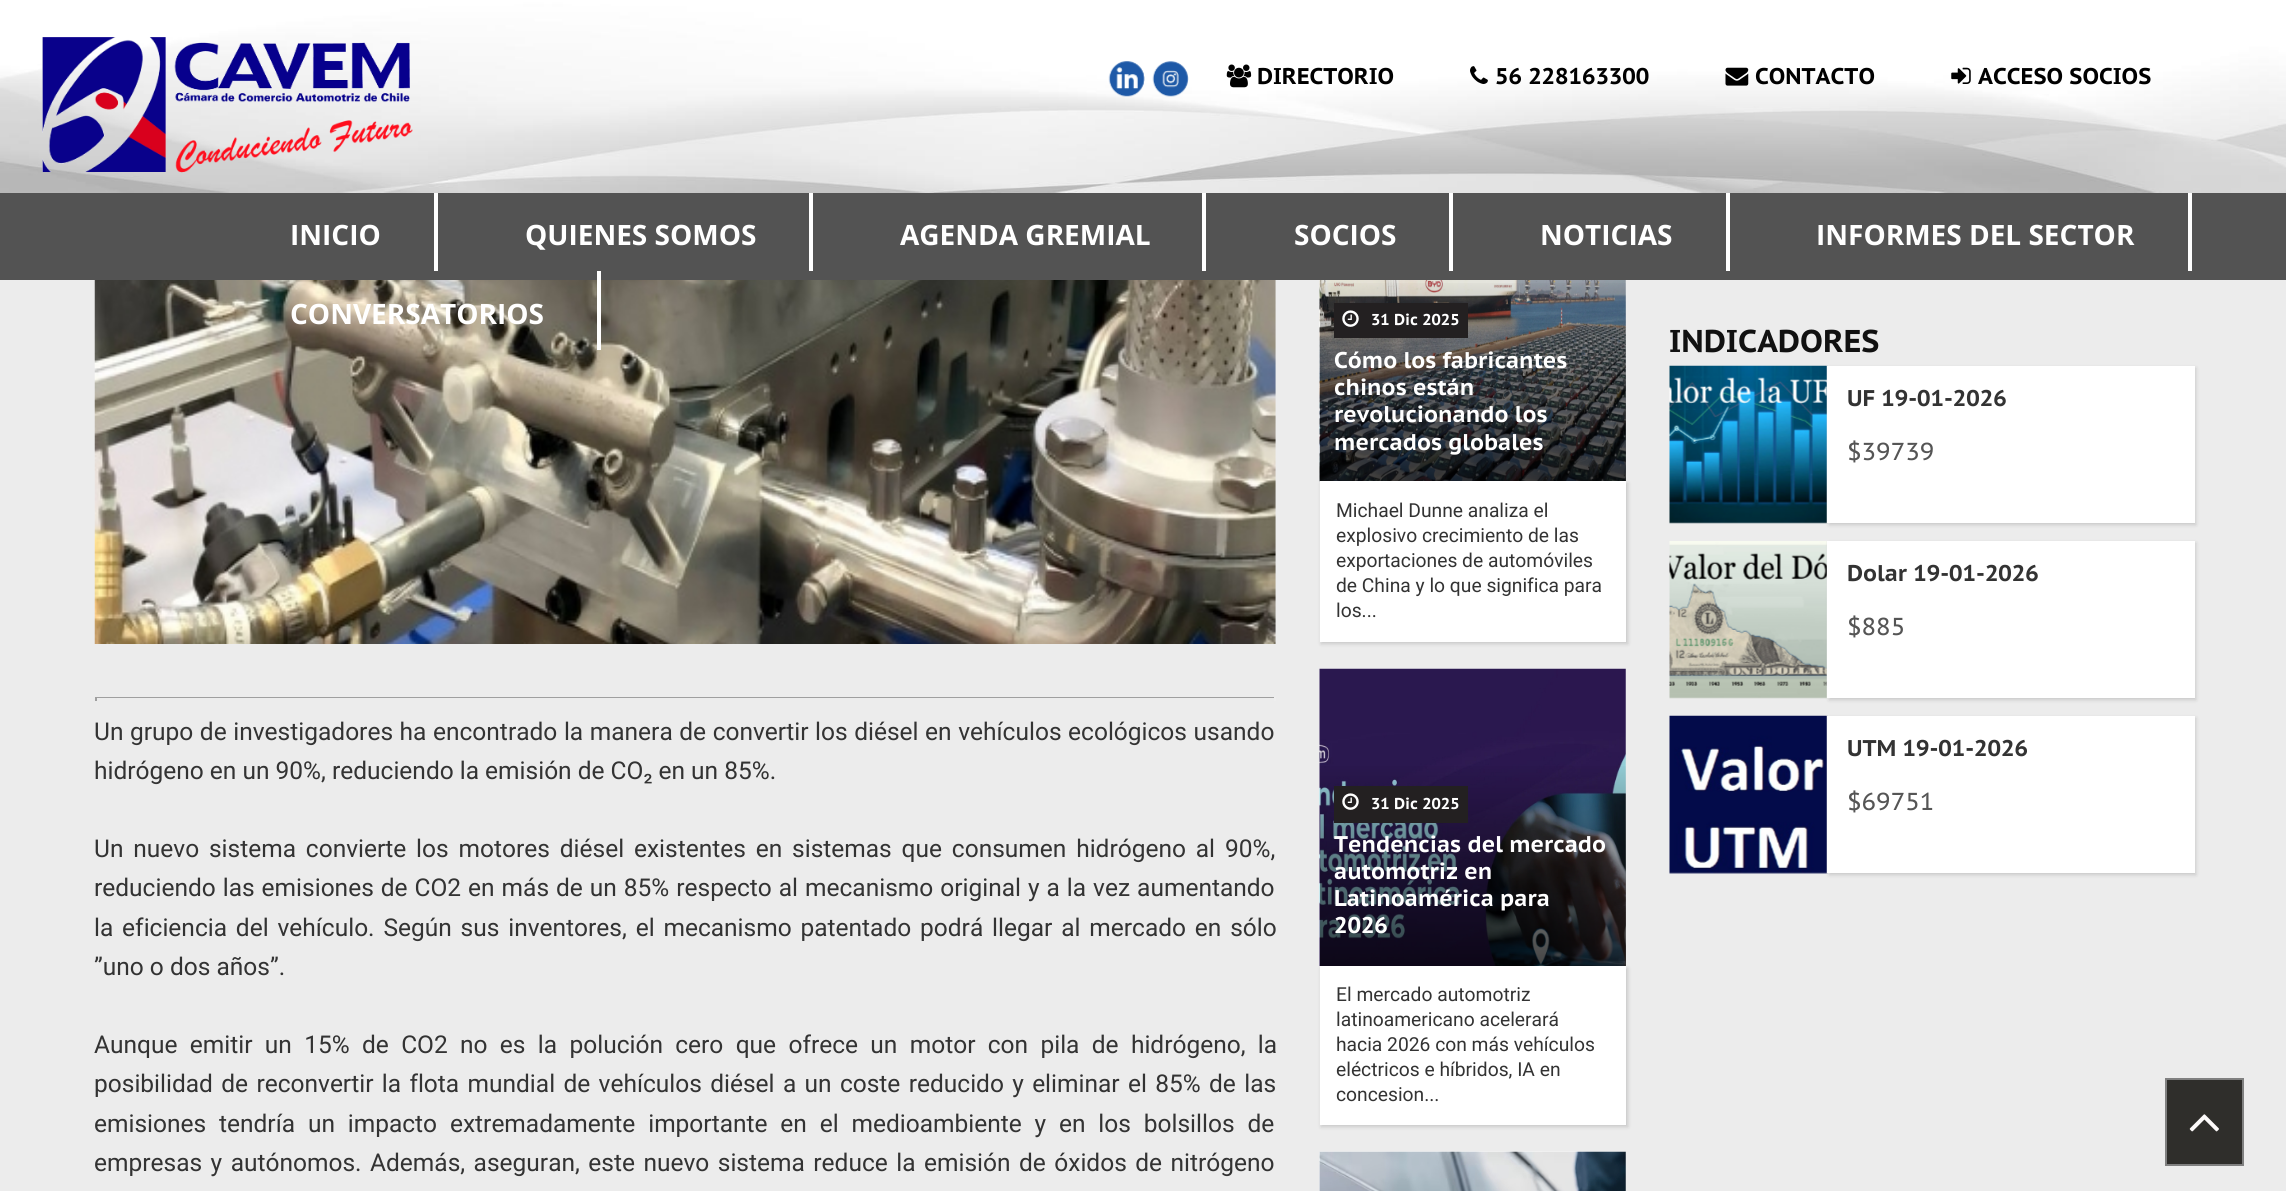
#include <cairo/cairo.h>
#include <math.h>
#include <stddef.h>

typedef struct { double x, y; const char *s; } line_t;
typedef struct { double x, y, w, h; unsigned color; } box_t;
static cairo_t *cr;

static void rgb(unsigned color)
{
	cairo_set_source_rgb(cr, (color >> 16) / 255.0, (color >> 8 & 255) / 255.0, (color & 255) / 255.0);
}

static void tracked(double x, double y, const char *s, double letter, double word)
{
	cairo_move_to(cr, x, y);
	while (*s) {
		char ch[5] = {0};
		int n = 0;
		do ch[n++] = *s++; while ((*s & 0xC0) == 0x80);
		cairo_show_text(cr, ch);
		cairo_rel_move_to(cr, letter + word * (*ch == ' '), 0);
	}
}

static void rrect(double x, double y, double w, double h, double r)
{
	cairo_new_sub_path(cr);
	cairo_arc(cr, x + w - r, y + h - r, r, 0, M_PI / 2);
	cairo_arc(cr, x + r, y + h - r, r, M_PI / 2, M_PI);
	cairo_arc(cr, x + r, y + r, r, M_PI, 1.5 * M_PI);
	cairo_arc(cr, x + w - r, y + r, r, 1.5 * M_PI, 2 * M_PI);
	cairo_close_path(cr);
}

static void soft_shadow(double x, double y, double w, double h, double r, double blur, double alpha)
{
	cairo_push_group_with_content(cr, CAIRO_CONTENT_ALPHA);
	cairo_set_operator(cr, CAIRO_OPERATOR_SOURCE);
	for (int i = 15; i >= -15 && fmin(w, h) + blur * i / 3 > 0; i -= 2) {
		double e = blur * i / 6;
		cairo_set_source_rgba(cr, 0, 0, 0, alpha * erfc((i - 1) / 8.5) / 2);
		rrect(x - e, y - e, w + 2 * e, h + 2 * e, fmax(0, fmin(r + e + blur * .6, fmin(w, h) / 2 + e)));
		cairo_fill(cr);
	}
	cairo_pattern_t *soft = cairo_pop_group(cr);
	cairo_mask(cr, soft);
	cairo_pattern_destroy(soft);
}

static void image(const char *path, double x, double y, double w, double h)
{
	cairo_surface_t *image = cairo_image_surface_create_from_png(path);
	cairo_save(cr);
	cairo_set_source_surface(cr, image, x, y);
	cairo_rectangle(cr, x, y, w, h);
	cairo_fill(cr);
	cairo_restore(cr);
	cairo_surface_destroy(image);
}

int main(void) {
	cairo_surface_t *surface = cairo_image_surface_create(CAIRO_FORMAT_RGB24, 2286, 1191);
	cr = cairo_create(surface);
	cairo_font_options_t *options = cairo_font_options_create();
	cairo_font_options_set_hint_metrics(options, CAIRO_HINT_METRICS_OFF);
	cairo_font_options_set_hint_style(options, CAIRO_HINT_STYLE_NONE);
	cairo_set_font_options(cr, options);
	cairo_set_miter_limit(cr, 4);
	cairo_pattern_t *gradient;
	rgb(0xececec);
	cairo_paint(cr);
	image("img/1.png", 0, 0, 2286, 193);
	image("img/2.png", 42, 37, 371, 136);
	image("img/3.png", 1108, 61, 37, 36);
	image("img/4.png", 1152, 61, 37, 36);
	image("img/5.png", 1226, 64, 26, 24);
	image("img/6.png", 1470, 66, 18, 18);
	image("img/7.png", 1725, 67, 24, 19);
	image("img/8.png", 1951, 67, 20, 17);
	{
		static const box_t items[] = {
			{0, 193, 2286, 87, 0x535353},
			{434, 193, 4, 78, 0xffffff},
			{809, 193, 4, 78, 0xffffff},
			{1202, 193, 4, 78, 0xffffff},
			{1449, 193, 4, 78, 0xffffff},
			{1726, 193, 4, 78, 0xffffff},
			{2188, 193, 4, 78, 0xffffff},
		};
		for (size_t i = 0; i < sizeof items / sizeof *items; i++) {
			rgb(items[i].color);
			cairo_rectangle(cr, items[i].x, items[i].y, items[i].w, items[i].h);
			cairo_fill(cr);
		}
	}
	image("img/9.png", 94, 280, 1182, 364);
	{
		static const box_t items[] = {
			{597, 271, 4, 79, 0xffffff},
			{95, 697, 1181, 1, 0x9f9f9f},
			{1274, 697, 2, 4, 0xeeeeee},
			{95, 697, 2, 4, 0x9f9f9f},
		};
		for (size_t i = 0; i < sizeof items / sizeof *items; i++) {
			rgb(items[i].color);
			cairo_rectangle(cr, items[i].x, items[i].y, items[i].w, items[i].h);
			cairo_fill(cr);
		}
	}
	image("img/10.png", 1319, 280, 307, 202);
	gradient = cairo_pattern_create_linear(1473, 277, 1473, 481);
	cairo_pattern_add_color_stop_rgba(gradient, 0, 0, 0, 0, 0);
	cairo_pattern_add_color_stop_rgba(gradient, 0.5, 0, 0, 0, 0.4);
	cairo_pattern_add_color_stop_rgba(gradient, 1, 0, 0, 0, 0.7);
	cairo_set_source(cr, gradient);
	cairo_pattern_destroy(gradient);
	cairo_rectangle(cr, 1320, 283, 306, 198);
	cairo_fill(cr);
	rgb(0x232021);
	cairo_rectangle(cr, 1334, 303, 134, 35);
	cairo_fill(cr);
	image("img/11.png", 1342, 310, 17, 17);
	rgb(0x000000);
	soft_shadow(1321, 483, 307, 161, 0, 2, 0.15);
	rgb(0xffffff);
	cairo_rectangle(cr, 1320, 481, 306, 161);
	cairo_fill(cr);
	image("img/12.png", 1319, 668, 307, 298);
	gradient = cairo_pattern_create_linear(1473, 760, 1473, 966);
	cairo_pattern_add_color_stop_rgba(gradient, 0, 0, 0, 0, 0);
	cairo_pattern_add_color_stop_rgba(gradient, 0.5, 0, 0, 0, 0.4);
	cairo_pattern_add_color_stop_rgba(gradient, 1, 0, 0, 0, 0.7);
	cairo_set_source(cr, gradient);
	cairo_pattern_destroy(gradient);
	cairo_rectangle(cr, 1320, 766, 306, 200);
	cairo_fill(cr);
	rgb(0x232021);
	cairo_rectangle(cr, 1334, 786, 134, 37);
	cairo_fill(cr);
	image("img/11.png", 1342, 793, 17, 17);
	rgb(0x000000);
	soft_shadow(1321, 968, 307, 159, 0, 2, 0.15);
	rgb(0xffffff);
	cairo_rectangle(cr, 1320, 966, 306, 159);
	cairo_fill(cr);
	image("img/13.png", 1319, 1151, 307, 40);
	image("img/14.png", 1669, 365, 159, 159);
	rgb(0x000000);
	soft_shadow(1829, 368, 367, 157, 0, 2, 0.15);
	rgb(0xffffff);
	cairo_rectangle(cr, 1827, 366, 368, 157);
	cairo_fill(cr);
	image("img/15.png", 1669, 541, 159, 158);
	rgb(0x000000);
	soft_shadow(1829, 543, 367, 157, 0, 2, 0.15);
	rgb(0xffffff);
	cairo_rectangle(cr, 1827, 541, 368, 157);
	cairo_fill(cr);
	image("img/16.png", 1669, 715, 159, 159);
	rgb(0x000000);
	soft_shadow(1829, 718, 367, 157, 0, 2, 0.15);
	rgb(0xffffff);
	cairo_rectangle(cr, 1827, 716, 368, 157);
	cairo_fill(cr);
	rgb(0x2f2e2b);
	cairo_rectangle(cr, 2166, 1079, 77, 86);
	cairo_fill_preserve(cr);
	rgb(0x808080);
	cairo_stroke(cr);
	image("img/17.png", 2189, 1114, 30, 18);
	cairo_select_font_face(cr, "PT Sans Caption", CAIRO_FONT_SLANT_NORMAL, CAIRO_FONT_WEIGHT_BOLD);
	cairo_set_font_size(cr, 22.75);
	rgb(0x000000);
	{
		static const line_t items[] = {
			{1257, 84, "DIRECTORIO"},
			{1495, 84, "56 228163300"},
			{1755, 84, "CONTACTO"},
			{1978, 84, "ACCESO SOCIOS"},
		};
		for (size_t i = 0; i < sizeof items / sizeof *items; i++) {
			cairo_move_to(cr, items[i].x, items[i].y);
			cairo_show_text(cr, items[i].s);
		}
	}
	cairo_select_font_face(cr, "Open Sans", CAIRO_FONT_SLANT_NORMAL, CAIRO_FONT_WEIGHT_BOLD);
	cairo_set_font_size(cr, 28);
	rgb(0xffffff);
	{
		static const line_t items[] = {
			{290, 245, "INICIO"},
			{525, 245, "QUIENES SOMOS"},
			{900, 245, "AGENDA GREMIAL"},
			{1294, 245, "SOCIOS"},
			{1540, 245, "NOTICIAS"},
			{1816, 245, "INFORMES DEL SECTOR"},
			{290, 324, "CONVERSATORIOS"},
		};
		for (size_t i = 0; i < sizeof items / sizeof *items; i++) {
			cairo_move_to(cr, items[i].x, items[i].y);
			cairo_show_text(cr, items[i].s);
		}
	}
	cairo_select_font_face(cr, "Roboto", CAIRO_FONT_SLANT_NORMAL, CAIRO_FONT_WEIGHT_NORMAL);
	cairo_set_font_size(cr, 24.5);
	rgb(0x333333);
	tracked(94, 740, "Un grupo de investigadores ha encontrado la manera de convertir los diésel en vehículos ecológicos usando", 0, 0.5);
	cairo_move_to(cr, 94, 779);
	cairo_show_text(cr, "hidrógeno en un 90%, reduciendo la emisión de CO₂ en un 85%.");
	tracked(94, 857, "Un nuevo sistema convierte los motores diésel existentes en sistemas que consumen hidrógeno al 90%,", 0, 3.75);
	tracked(94, 896, "reduciendo las emisiones de CO2 en más de un 85% respecto al mecanismo original y a la vez aumentando", 0, 0.9);
	tracked(94, 936, "la eficiencia del vehículo. Según sus inventores, el mecanismo patentado podrá llegar al mercado en sólo", 0, 2.75);
	cairo_move_to(cr, 94, 975);
	cairo_show_text(cr, "”uno o dos años”.");
	tracked(94, 1053, "Aunque emitir un 15% de CO2 no es la polución cero que ofrece un motor con pila de hidrógeno, la", 0, 6.25);
	tracked(94, 1092, "posibilidad de reconvertir la flota mundial de vehículos diésel a un coste reducido y eliminar el 85% de las", 0, 2.25);
	tracked(94, 1132, "emisiones tendría un impacto extremadamente importante en el medioambiente y en los bolsillos de", 0, 6.75);
	tracked(94, 1171, "empresas y autónomos. Además, aseguran, este nuevo sistema reduce la emisión de óxidos de nitrógeno", 0, 2.4);
	cairo_select_font_face(cr, "PT Sans Caption", CAIRO_FONT_SLANT_NORMAL, CAIRO_FONT_WEIGHT_BOLD);
	cairo_set_font_size(cr, 15.75);
	rgb(0xffffff);
	cairo_move_to(cr, 1371, 325);
	cairo_show_text(cr, "31 Dic 2025");
	cairo_set_font_size(cr, 22.75);
	{
		static const line_t items[] = {
			{1334, 368, "Cómo los fabricantes"},
			{1334, 395, "chinos están"},
			{1334, 422, "revolucionando los"},
			{1334, 450, "mercados globales"},
		};
		for (size_t i = 0; i < sizeof items / sizeof *items; i++) {
			cairo_move_to(cr, items[i].x, items[i].y);
			cairo_show_text(cr, items[i].s);
		}
	}
	cairo_select_font_face(cr, "Roboto", CAIRO_FONT_SLANT_NORMAL, CAIRO_FONT_WEIGHT_NORMAL);
	cairo_set_font_size(cr, 19.25);
	rgb(0x333333);
	{
		static const line_t items[] = {
			{1336, 517, "Michael Dunne analiza el"},
			{1336, 542, "explosivo crecimiento de las"},
			{1336, 567, "exportaciones de automóviles"},
			{1336, 592, "de China y lo que significa para"},
			{1336, 617, "los..."},
		};
		for (size_t i = 0; i < sizeof items / sizeof *items; i++) {
			cairo_move_to(cr, items[i].x, items[i].y);
			cairo_show_text(cr, items[i].s);
		}
	}
	cairo_select_font_face(cr, "PT Sans Caption", CAIRO_FONT_SLANT_NORMAL, CAIRO_FONT_WEIGHT_BOLD);
	cairo_set_font_size(cr, 15.75);
	rgb(0xffffff);
	cairo_move_to(cr, 1371, 809);
	cairo_show_text(cr, "31 Dic 2025");
	cairo_set_font_size(cr, 22.75);
	{
		static const line_t items[] = {
			{1334, 852, "Tendencias del mercado"},
			{1334, 879, "automotriz en"},
			{1334, 906, "Latinoamérica para"},
			{1334, 933, "2026"},
		};
		for (size_t i = 0; i < sizeof items / sizeof *items; i++) {
			cairo_move_to(cr, items[i].x, items[i].y);
			cairo_show_text(cr, items[i].s);
		}
	}
	cairo_select_font_face(cr, "Roboto", CAIRO_FONT_SLANT_NORMAL, CAIRO_FONT_WEIGHT_NORMAL);
	cairo_set_font_size(cr, 19.25);
	rgb(0x333333);
	{
		static const line_t items[] = {
			{1336, 1001, "El mercado automotriz"},
			{1336, 1026, "latinoamericano acelerará"},
			{1336, 1051, "hacia 2026 con más vehículos"},
			{1336, 1076, "eléctricos e híbridos, IA en"},
			{1336, 1101, "concesion..."},
		};
		for (size_t i = 0; i < sizeof items / sizeof *items; i++) {
			cairo_move_to(cr, items[i].x, items[i].y);
			cairo_show_text(cr, items[i].s);
		}
	}
	cairo_select_font_face(cr, "PT Sans Caption", CAIRO_FONT_SLANT_NORMAL, CAIRO_FONT_WEIGHT_BOLD);
	cairo_set_font_size(cr, 31.5);
	rgb(0x111111);
	cairo_move_to(cr, 1669, 352);
	cairo_show_text(cr, "INDICADORES");
	cairo_set_font_size(cr, 22.75);
	rgb(0x333333);
	cairo_move_to(cr, 1847, 406);
	cairo_show_text(cr, "UF 19-01-2026");
	cairo_select_font_face(cr, "PT Sans Caption", CAIRO_FONT_SLANT_NORMAL, CAIRO_FONT_WEIGHT_NORMAL);
	cairo_set_font_size(cr, 24.5);
	rgb(0x555555);
	cairo_move_to(cr, 1847, 460);
	cairo_show_text(cr, "$39739");
	cairo_select_font_face(cr, "PT Sans Caption", CAIRO_FONT_SLANT_NORMAL, CAIRO_FONT_WEIGHT_BOLD);
	cairo_set_font_size(cr, 22.75);
	rgb(0x333333);
	cairo_move_to(cr, 1847, 581);
	cairo_show_text(cr, "Dolar 19-01-2026");
	cairo_select_font_face(cr, "PT Sans Caption", CAIRO_FONT_SLANT_NORMAL, CAIRO_FONT_WEIGHT_NORMAL);
	cairo_set_font_size(cr, 24.5);
	rgb(0x555555);
	cairo_move_to(cr, 1847, 635);
	cairo_show_text(cr, "$885");
	cairo_select_font_face(cr, "PT Sans Caption", CAIRO_FONT_SLANT_NORMAL, CAIRO_FONT_WEIGHT_BOLD);
	cairo_set_font_size(cr, 22.75);
	rgb(0x333333);
	cairo_move_to(cr, 1847, 756);
	cairo_show_text(cr, "UTM 19-01-2026");
	cairo_select_font_face(cr, "PT Sans Caption", CAIRO_FONT_SLANT_NORMAL, CAIRO_FONT_WEIGHT_NORMAL);
	cairo_set_font_size(cr, 24.5);
	rgb(0x555555);
	cairo_move_to(cr, 1847, 810);
	cairo_show_text(cr, "$69751");
	cairo_surface_write_to_png(surface, "page.png");
	cairo_font_options_destroy(options);
	cairo_destroy(cr);
	cairo_surface_destroy(surface);
	return 0;
}
